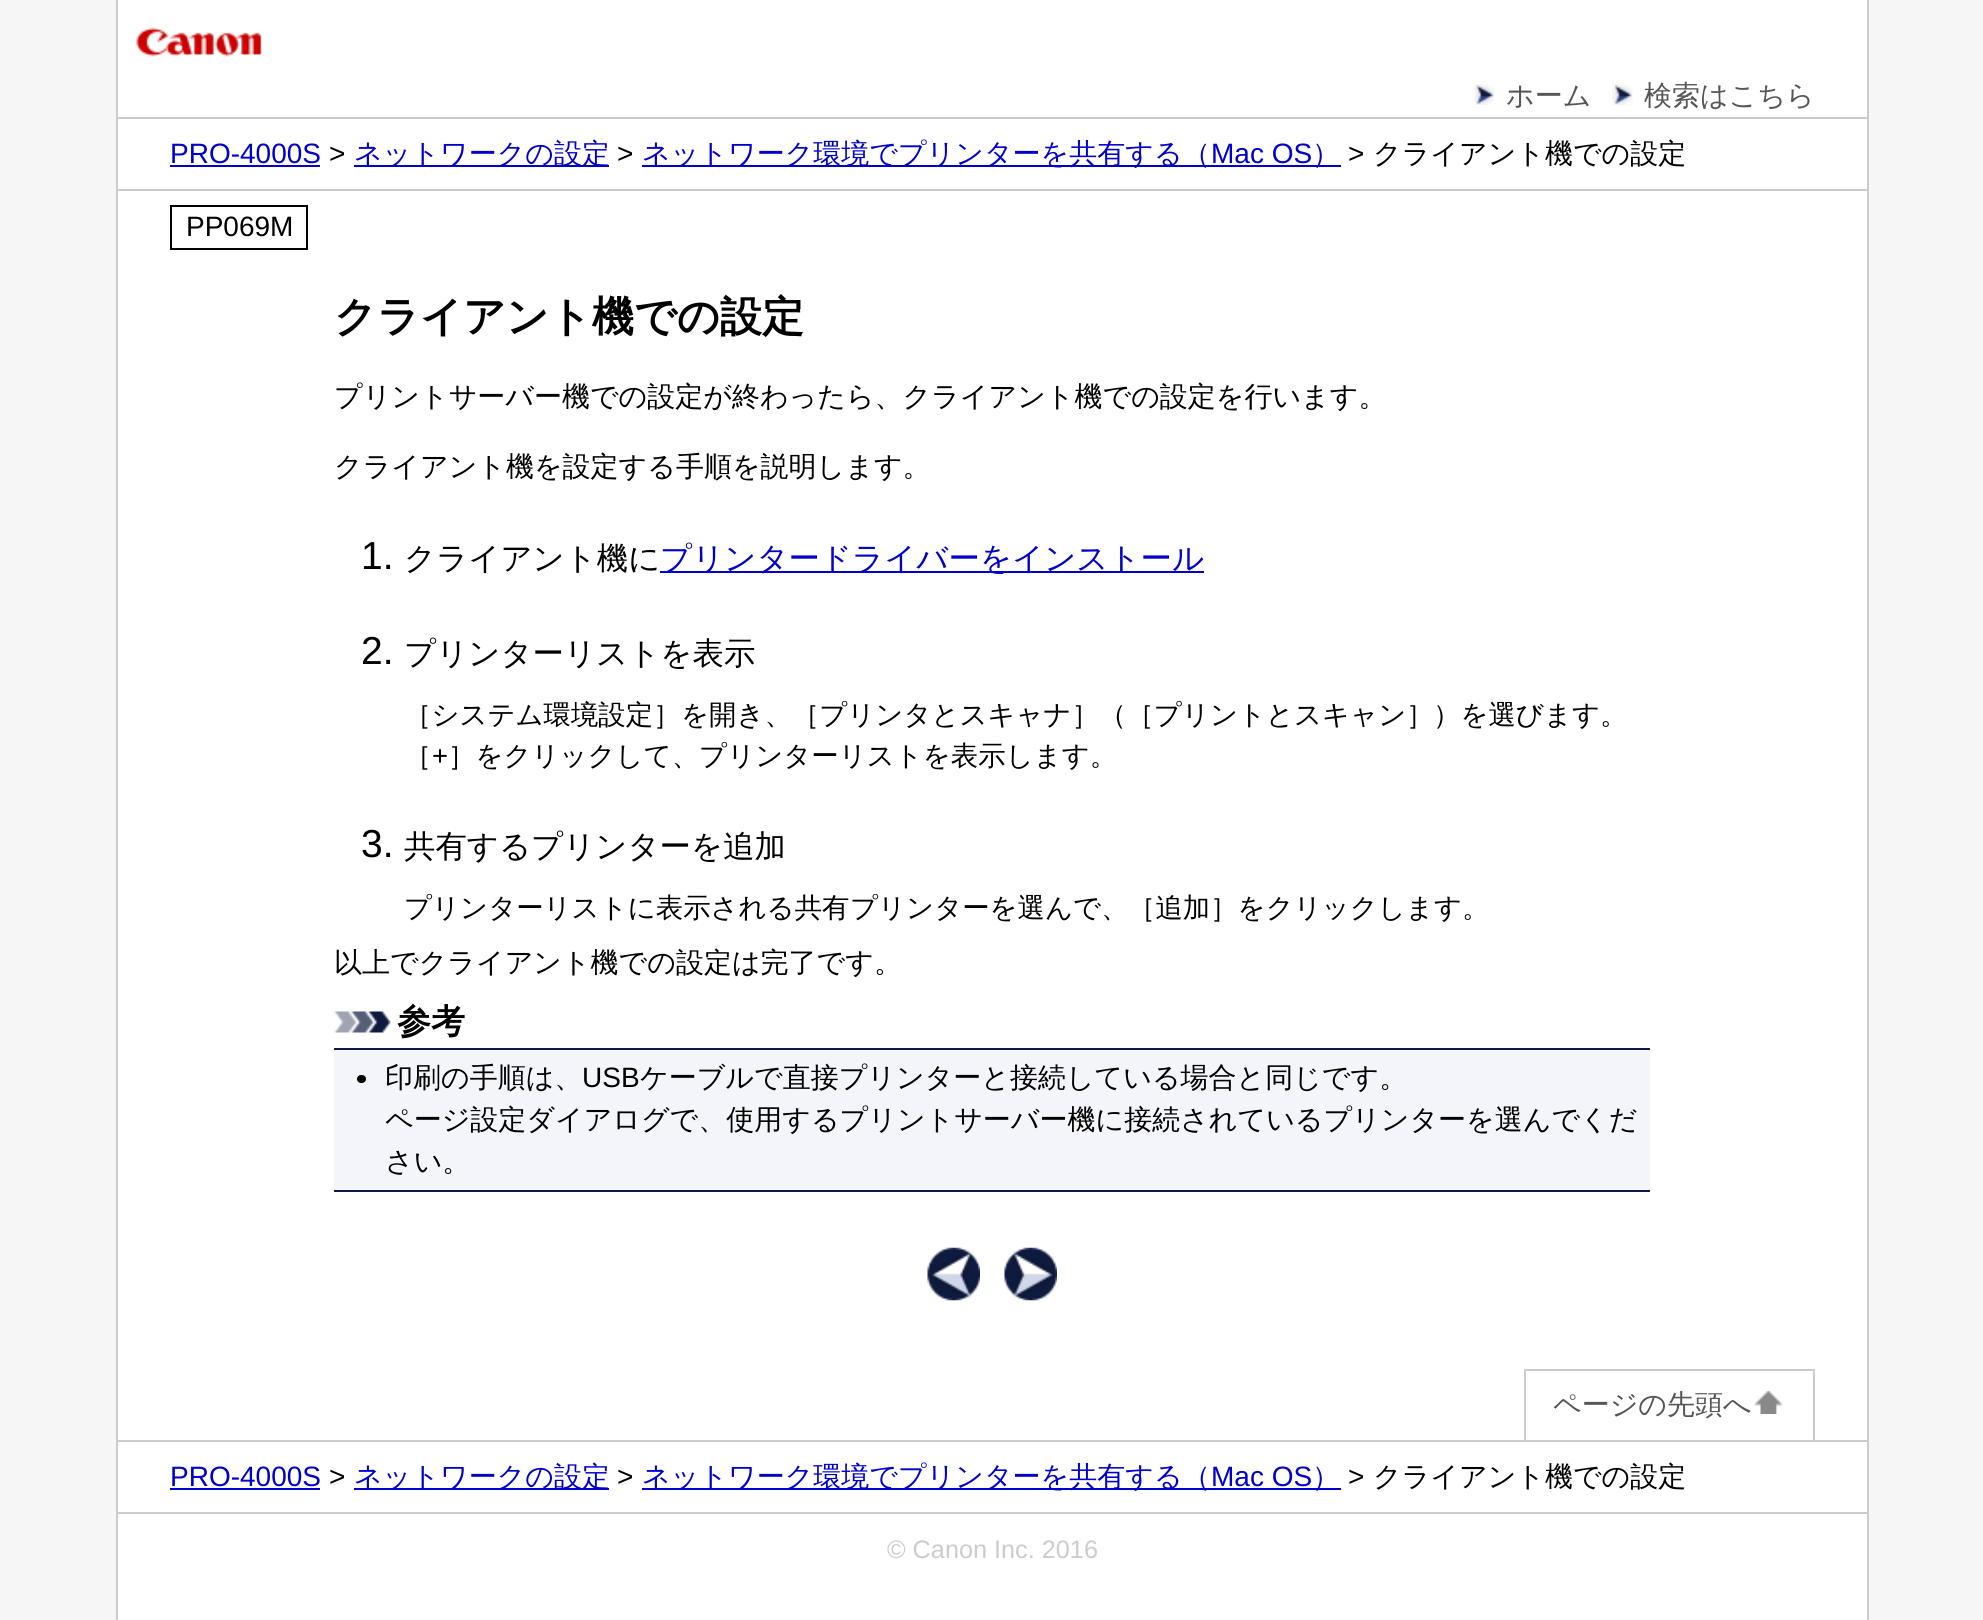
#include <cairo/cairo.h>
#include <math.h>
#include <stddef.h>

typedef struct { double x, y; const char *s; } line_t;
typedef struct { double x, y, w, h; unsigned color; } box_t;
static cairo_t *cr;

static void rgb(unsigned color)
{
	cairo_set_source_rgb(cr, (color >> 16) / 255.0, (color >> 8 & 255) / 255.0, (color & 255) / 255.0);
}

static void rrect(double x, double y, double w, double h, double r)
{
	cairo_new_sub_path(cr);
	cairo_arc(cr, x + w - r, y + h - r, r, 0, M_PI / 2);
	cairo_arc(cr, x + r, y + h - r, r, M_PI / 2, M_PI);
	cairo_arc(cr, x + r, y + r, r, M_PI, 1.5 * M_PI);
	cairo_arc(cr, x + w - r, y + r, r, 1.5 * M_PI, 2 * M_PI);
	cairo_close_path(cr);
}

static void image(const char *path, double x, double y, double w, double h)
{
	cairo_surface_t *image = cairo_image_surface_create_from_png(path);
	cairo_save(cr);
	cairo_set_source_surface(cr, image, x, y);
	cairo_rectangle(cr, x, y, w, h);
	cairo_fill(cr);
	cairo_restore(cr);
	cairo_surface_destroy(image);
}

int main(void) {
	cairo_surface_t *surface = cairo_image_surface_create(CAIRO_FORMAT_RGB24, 1983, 1620);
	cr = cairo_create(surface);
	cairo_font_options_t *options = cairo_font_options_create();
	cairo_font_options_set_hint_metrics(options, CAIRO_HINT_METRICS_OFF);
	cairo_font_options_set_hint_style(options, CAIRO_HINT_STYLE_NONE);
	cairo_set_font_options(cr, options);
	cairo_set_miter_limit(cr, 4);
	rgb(0xf6f6f6);
	cairo_paint(cr);
	{
		static const box_t items[] = {
			{118, 0, 1749, 1620, 0xffffff},
			{1867, 0, 2, 1620, 0xcccccc},
			{116, 0, 2, 1620, 0xcccccc},
		};
		for (size_t i = 0; i < sizeof items / sizeof *items; i++) {
			rgb(items[i].color);
			cairo_rectangle(cr, items[i].x, items[i].y, items[i].w, items[i].h);
			cairo_fill(cr);
		}
	}
	image("img/1.png", 136, 27, 126, 30);
	cairo_rectangle(cr, 117, 189, 1750, 2);
	cairo_fill(cr);
	image("img/2.png", 1474, 84, 21, 21);
	image("img/3.png", 1612, 84, 21, 21);
	{
		static const box_t items[] = {
			{117, 117, 1750, 2, 0xcccccc},
			{170, 165, 150, 2, 0x0000cc},
			{354, 165, 255, 2, 0x0000cc},
			{642, 165, 699, 2, 0x0000cc},
		};
		for (size_t i = 0; i < sizeof items / sizeof *items; i++) {
			rgb(items[i].color);
			cairo_rectangle(cr, items[i].x, items[i].y, items[i].w, items[i].h);
			cairo_fill(cr);
		}
	}
	cairo_rectangle(cr, 171, 206, 136, 43);
	rgb(0x000000);
	cairo_stroke(cr);
	rgb(0x0000cc);
	cairo_rectangle(cr, 660, 571, 544, 2);
	cairo_fill(cr);
	image("img/4.png", 334, 1011, 57, 22);
	{
		static const box_t items[] = {
			{334, 1050, 1316, 140, 0xf4f5fa},
			{334, 1048, 1316, 2, 0x0e1b3f},
			{334, 1190, 1316, 2, 0x0e1b3f},
		};
		for (size_t i = 0; i < sizeof items / sizeof *items; i++) {
			rgb(items[i].color);
			cairo_rectangle(cr, items[i].x, items[i].y, items[i].w, items[i].h);
			cairo_fill(cr);
		}
	}
	rgb(0x000000);
	rrect(357, 1075, 9, 8, 4);
	cairo_fill(cr);
	rgb(0xcccccc);
	cairo_rectangle(cr, 117, 1512, 1750, 2);
	cairo_fill(cr);
	image("img/5.png", 927, 1247, 53, 54);
	image("img/6.png", 1004, 1247, 53, 54);
	{
		static const box_t items[] = {
			{1524, 1369, 291, 2, 0xcccccc},
			{1813, 1369, 2, 71, 0xcccccc},
			{1524, 1369, 2, 71, 0xcccccc},
		};
		for (size_t i = 0; i < sizeof items / sizeof *items; i++) {
			rgb(items[i].color);
			cairo_rectangle(cr, items[i].x, items[i].y, items[i].w, items[i].h);
			cairo_fill(cr);
		}
	}
	image("img/7.png", 1754, 1391, 29, 23);
	{
		static const box_t items[] = {
			{117, 1440, 1750, 2, 0xcccccc},
			{170, 1488, 150, 2, 0x0000cc},
			{354, 1488, 255, 2, 0x0000cc},
			{642, 1488, 699, 2, 0x0000cc},
		};
		for (size_t i = 0; i < sizeof items / sizeof *items; i++) {
			rgb(items[i].color);
			cairo_rectangle(cr, items[i].x, items[i].y, items[i].w, items[i].h);
			cairo_fill(cr);
		}
	}
	cairo_select_font_face(cr, "WenQuanYi Zen Hei Medium", CAIRO_FONT_SLANT_NORMAL, CAIRO_FONT_WEIGHT_NORMAL);
	cairo_set_font_size(cr, 28);
	rgb(0x555555);
	cairo_move_to(cr, 1506, 105);
	cairo_show_text(cr, "ホーム");
	cairo_move_to(cr, 1644, 105);
	cairo_show_text(cr, "検索はこちら");
	cairo_select_font_face(cr, "Liberation Sans", CAIRO_FONT_SLANT_NORMAL, CAIRO_FONT_WEIGHT_NORMAL);
	rgb(0x0000cc);
	cairo_move_to(cr, 170, 163);
	cairo_show_text(cr, "PRO-4000S");
	rgb(0x000000);
	cairo_move_to(cr, 329, 163);
	cairo_show_text(cr, ">");
	cairo_select_font_face(cr, "WenQuanYi Zen Hei Medium", CAIRO_FONT_SLANT_NORMAL, CAIRO_FONT_WEIGHT_NORMAL);
	rgb(0x0000cc);
	cairo_move_to(cr, 354, 163);
	cairo_show_text(cr, "ネットワークの設定");
	cairo_select_font_face(cr, "Liberation Sans", CAIRO_FONT_SLANT_NORMAL, CAIRO_FONT_WEIGHT_NORMAL);
	rgb(0x000000);
	cairo_move_to(cr, 617, 163);
	cairo_show_text(cr, ">");
	cairo_select_font_face(cr, "WenQuanYi Zen Hei Medium", CAIRO_FONT_SLANT_NORMAL, CAIRO_FONT_WEIGHT_NORMAL);
	rgb(0x0000cc);
	cairo_move_to(cr, 642, 163);
	cairo_show_text(cr, "ネットワーク環境でプリンターを共有する（");
	cairo_select_font_face(cr, "Liberation Sans", CAIRO_FONT_SLANT_NORMAL, CAIRO_FONT_WEIGHT_NORMAL);
	cairo_move_to(cr, 1211, 163);
	cairo_show_text(cr, "Mac OS");
	cairo_select_font_face(cr, "WenQuanYi Zen Hei Medium", CAIRO_FONT_SLANT_NORMAL, CAIRO_FONT_WEIGHT_NORMAL);
	cairo_move_to(cr, 1312, 163);
	cairo_show_text(cr, "）");
	cairo_select_font_face(cr, "Liberation Sans", CAIRO_FONT_SLANT_NORMAL, CAIRO_FONT_WEIGHT_NORMAL);
	rgb(0x000000);
	cairo_move_to(cr, 1348, 163);
	cairo_show_text(cr, ">");
	cairo_select_font_face(cr, "WenQuanYi Zen Hei Medium", CAIRO_FONT_SLANT_NORMAL, CAIRO_FONT_WEIGHT_NORMAL);
	cairo_move_to(cr, 1373, 163);
	cairo_show_text(cr, "クライアント機での設定");
	cairo_select_font_face(cr, "Liberation Sans", CAIRO_FONT_SLANT_NORMAL, CAIRO_FONT_WEIGHT_NORMAL);
	cairo_move_to(cr, 186, 236);
	cairo_show_text(cr, "PP069M");
	cairo_select_font_face(cr, "WenQuanYi Zen Hei", CAIRO_FONT_SLANT_NORMAL, CAIRO_FONT_WEIGHT_BOLD);
	cairo_set_font_size(cr, 42);
	cairo_move_to(cr, 334, 331);
	cairo_show_text(cr, "クライアント機での設定");
	cairo_select_font_face(cr, "WenQuanYi Zen Hei Medium", CAIRO_FONT_SLANT_NORMAL, CAIRO_FONT_WEIGHT_NORMAL);
	cairo_set_font_size(cr, 28);
	cairo_move_to(cr, 334, 406);
	cairo_show_text(cr, "プリントサーバー機での設定が終わったら、クライアント機での設定を行います。");
	cairo_move_to(cr, 334, 476);
	cairo_show_text(cr, "クライアント機を設定する手順を説明します。");
	cairo_select_font_face(cr, "Liberation Sans", CAIRO_FONT_SLANT_NORMAL, CAIRO_FONT_WEIGHT_NORMAL);
	cairo_set_font_size(cr, 39);
	cairo_move_to(cr, 361, 569);
	cairo_show_text(cr, "1.");
	cairo_select_font_face(cr, "WenQuanYi Zen Hei Medium", CAIRO_FONT_SLANT_NORMAL, CAIRO_FONT_WEIGHT_NORMAL);
	cairo_set_font_size(cr, 31.4);
	cairo_move_to(cr, 404, 569);
	cairo_show_text(cr, "クライアント機に");
	rgb(0x0000cc);
	cairo_move_to(cr, 660, 569);
	cairo_show_text(cr, "プリンタードライバーをインストール");
	cairo_select_font_face(cr, "Liberation Sans", CAIRO_FONT_SLANT_NORMAL, CAIRO_FONT_WEIGHT_NORMAL);
	cairo_set_font_size(cr, 39);
	rgb(0x000000);
	cairo_move_to(cr, 361, 664);
	cairo_show_text(cr, "2.");
	cairo_select_font_face(cr, "WenQuanYi Zen Hei Medium", CAIRO_FONT_SLANT_NORMAL, CAIRO_FONT_WEIGHT_NORMAL);
	cairo_set_font_size(cr, 31.4);
	cairo_move_to(cr, 404, 664);
	cairo_show_text(cr, "プリンターリストを表示");
	cairo_set_font_size(cr, 27.4);
	{
		static const line_t items[] = {
			{404, 724, "［システム環境設定］"},
			{681, 724, "を開き、［プリンタとスキャナ］"},
			{1099, 724, "（［プリントとスキャン］"},
			{1433, 724, "）を選びます。"},
			{404, 765, "［"},
		};
		for (size_t i = 0; i < sizeof items / sizeof *items; i++) {
			cairo_move_to(cr, items[i].x, items[i].y);
			cairo_show_text(cr, items[i].s);
		}
	}
	cairo_select_font_face(cr, "Liberation Sans", CAIRO_FONT_SLANT_NORMAL, CAIRO_FONT_WEIGHT_NORMAL);
	cairo_move_to(cr, 432, 765);
	cairo_show_text(cr, "+");
	cairo_select_font_face(cr, "WenQuanYi Zen Hei Medium", CAIRO_FONT_SLANT_NORMAL, CAIRO_FONT_WEIGHT_NORMAL);
	cairo_move_to(cr, 448, 765);
	cairo_show_text(cr, "］をクリックして、プリンターリストを表示します。");
	cairo_select_font_face(cr, "Liberation Sans", CAIRO_FONT_SLANT_NORMAL, CAIRO_FONT_WEIGHT_NORMAL);
	cairo_set_font_size(cr, 39);
	cairo_move_to(cr, 361, 857);
	cairo_show_text(cr, "3.");
	cairo_select_font_face(cr, "WenQuanYi Zen Hei Medium", CAIRO_FONT_SLANT_NORMAL, CAIRO_FONT_WEIGHT_NORMAL);
	cairo_set_font_size(cr, 31.4);
	cairo_move_to(cr, 404, 857);
	cairo_show_text(cr, "共有するプリンターを追加");
	cairo_set_font_size(cr, 27.4);
	{
		static const line_t items[] = {
			{404, 917, "プリンターリストに表示される共有"},
			{850, 917, "プリンターを選んで、"},
			{1128, 917, "［追加］をクリックします。"},
		};
		for (size_t i = 0; i < sizeof items / sizeof *items; i++) {
			cairo_move_to(cr, items[i].x, items[i].y);
			cairo_show_text(cr, items[i].s);
		}
	}
	cairo_set_font_size(cr, 28);
	cairo_move_to(cr, 334, 972);
	cairo_show_text(cr, "以上でクライアント機での設定は完了です。");
	cairo_select_font_face(cr, "WenQuanYi Zen Hei", CAIRO_FONT_SLANT_NORMAL, CAIRO_FONT_WEIGHT_BOLD);
	cairo_set_font_size(cr, 34);
	cairo_move_to(cr, 397, 1033);
	cairo_show_text(cr, "参考");
	cairo_select_font_face(cr, "WenQuanYi Zen Hei Medium", CAIRO_FONT_SLANT_NORMAL, CAIRO_FONT_WEIGHT_NORMAL);
	cairo_set_font_size(cr, 28);
	cairo_move_to(cr, 385, 1087);
	cairo_show_text(cr, "印刷の手順は、");
	cairo_select_font_face(cr, "Liberation Sans", CAIRO_FONT_SLANT_NORMAL, CAIRO_FONT_WEIGHT_NORMAL);
	cairo_move_to(cr, 582, 1087);
	cairo_show_text(cr, "USB");
	cairo_select_font_face(cr, "WenQuanYi Zen Hei Medium", CAIRO_FONT_SLANT_NORMAL, CAIRO_FONT_WEIGHT_NORMAL);
	{
		static const line_t items[] = {
			{640, 1087, "ケーブルで直接プリンターと接続している場合と同じです。"},
			{385, 1129, "ページ設定ダイアログで、使用するプリントサーバー機に接続されているプリンターを選んでくだ"},
			{385, 1171, "さい。"},
		};
		for (size_t i = 0; i < sizeof items / sizeof *items; i++) {
			cairo_move_to(cr, items[i].x, items[i].y);
			cairo_show_text(cr, items[i].s);
		}
	}
	rgb(0x555555);
	cairo_move_to(cr, 1553, 1414);
	cairo_show_text(cr, "ページの先頭へ");
	cairo_select_font_face(cr, "Liberation Sans", CAIRO_FONT_SLANT_NORMAL, CAIRO_FONT_WEIGHT_NORMAL);
	rgb(0x0000cc);
	cairo_move_to(cr, 170, 1486);
	cairo_show_text(cr, "PRO-4000S");
	rgb(0x000000);
	cairo_move_to(cr, 329, 1486);
	cairo_show_text(cr, ">");
	cairo_select_font_face(cr, "WenQuanYi Zen Hei Medium", CAIRO_FONT_SLANT_NORMAL, CAIRO_FONT_WEIGHT_NORMAL);
	rgb(0x0000cc);
	cairo_move_to(cr, 354, 1486);
	cairo_show_text(cr, "ネットワークの設定");
	cairo_select_font_face(cr, "Liberation Sans", CAIRO_FONT_SLANT_NORMAL, CAIRO_FONT_WEIGHT_NORMAL);
	rgb(0x000000);
	cairo_move_to(cr, 617, 1486);
	cairo_show_text(cr, ">");
	cairo_select_font_face(cr, "WenQuanYi Zen Hei Medium", CAIRO_FONT_SLANT_NORMAL, CAIRO_FONT_WEIGHT_NORMAL);
	rgb(0x0000cc);
	cairo_move_to(cr, 642, 1486);
	cairo_show_text(cr, "ネットワーク環境でプリンターを共有する（");
	cairo_select_font_face(cr, "Liberation Sans", CAIRO_FONT_SLANT_NORMAL, CAIRO_FONT_WEIGHT_NORMAL);
	cairo_move_to(cr, 1211, 1486);
	cairo_show_text(cr, "Mac OS");
	cairo_select_font_face(cr, "WenQuanYi Zen Hei Medium", CAIRO_FONT_SLANT_NORMAL, CAIRO_FONT_WEIGHT_NORMAL);
	cairo_move_to(cr, 1312, 1486);
	cairo_show_text(cr, "）");
	cairo_select_font_face(cr, "Liberation Sans", CAIRO_FONT_SLANT_NORMAL, CAIRO_FONT_WEIGHT_NORMAL);
	rgb(0x000000);
	cairo_move_to(cr, 1348, 1486);
	cairo_show_text(cr, ">");
	cairo_select_font_face(cr, "WenQuanYi Zen Hei Medium", CAIRO_FONT_SLANT_NORMAL, CAIRO_FONT_WEIGHT_NORMAL);
	cairo_move_to(cr, 1373, 1486);
	cairo_show_text(cr, "クライアント機での設定");
	cairo_select_font_face(cr, "Liberation Sans", CAIRO_FONT_SLANT_NORMAL, CAIRO_FONT_WEIGHT_NORMAL);
	cairo_set_font_size(cr, 25.25);
	rgb(0xcccccc);
	cairo_move_to(cr, 887, 1558);
	cairo_show_text(cr, "© Canon Inc. 2016");
	cairo_surface_write_to_png(surface, "page.png");
	cairo_font_options_destroy(options);
	cairo_destroy(cr);
	cairo_surface_destroy(surface);
	return 0;
}
